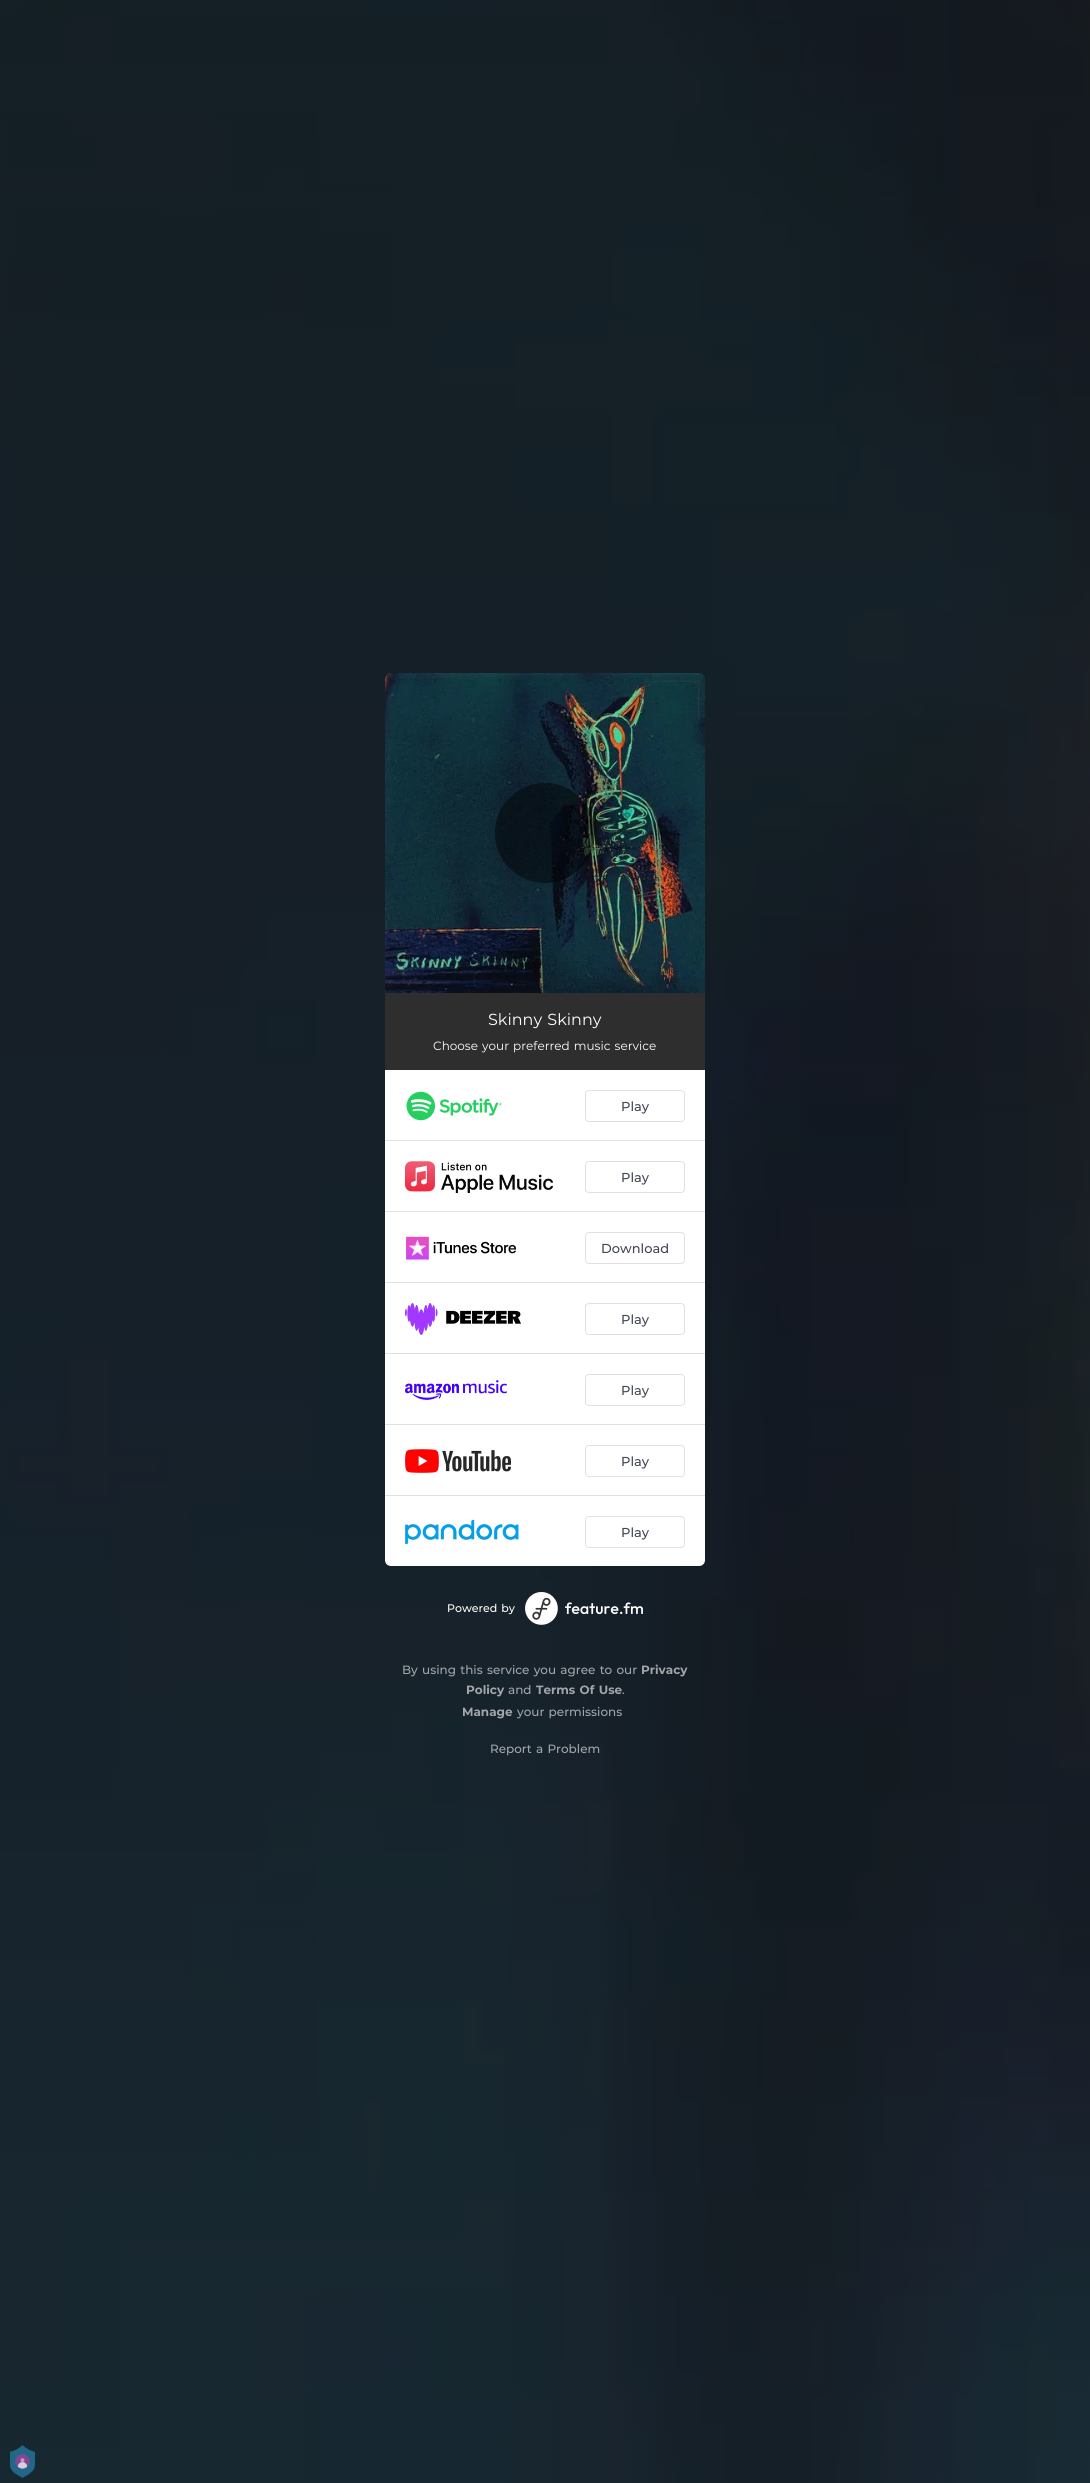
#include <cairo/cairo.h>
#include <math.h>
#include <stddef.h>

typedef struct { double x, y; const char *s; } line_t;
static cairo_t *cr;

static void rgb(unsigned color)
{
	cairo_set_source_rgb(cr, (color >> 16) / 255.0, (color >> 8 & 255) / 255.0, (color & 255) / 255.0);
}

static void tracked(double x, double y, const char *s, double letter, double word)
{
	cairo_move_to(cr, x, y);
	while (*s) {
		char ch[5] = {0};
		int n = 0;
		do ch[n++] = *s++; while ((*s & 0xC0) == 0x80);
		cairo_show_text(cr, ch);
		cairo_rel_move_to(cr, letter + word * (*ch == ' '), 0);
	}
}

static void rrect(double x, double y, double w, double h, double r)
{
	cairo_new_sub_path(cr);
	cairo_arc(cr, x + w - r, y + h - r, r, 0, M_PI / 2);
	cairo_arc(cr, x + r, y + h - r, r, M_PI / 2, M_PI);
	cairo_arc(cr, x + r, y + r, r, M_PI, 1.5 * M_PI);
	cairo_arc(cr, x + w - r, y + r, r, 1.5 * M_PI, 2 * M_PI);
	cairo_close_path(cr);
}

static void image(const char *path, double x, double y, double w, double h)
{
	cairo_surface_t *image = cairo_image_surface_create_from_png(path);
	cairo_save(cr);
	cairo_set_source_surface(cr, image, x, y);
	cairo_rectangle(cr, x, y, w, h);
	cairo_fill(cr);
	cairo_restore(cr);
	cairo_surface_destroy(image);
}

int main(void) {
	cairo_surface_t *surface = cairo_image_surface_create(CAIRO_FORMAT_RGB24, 1090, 2483);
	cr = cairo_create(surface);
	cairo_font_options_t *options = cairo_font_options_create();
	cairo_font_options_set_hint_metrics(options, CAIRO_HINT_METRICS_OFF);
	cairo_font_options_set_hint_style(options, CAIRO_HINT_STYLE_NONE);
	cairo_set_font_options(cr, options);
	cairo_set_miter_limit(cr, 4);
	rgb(0xffffff);
	cairo_paint(cr);
	image("img/1.png", 0, 0, 1090, 2483);
	image("img/2.png", 385, 673, 320, 320);
	cairo_set_source_rgba(cr, 0, 0, 0, 0.45);
	cairo_arc(cr, 545, 833, 50, 0, 2 * M_PI);
	cairo_fill(cr);
	rgb(0x2e2e2e);
	cairo_rectangle(cr, 385, 993, 320, 77);
	cairo_fill(cr);
	rgb(0xffffff);
	cairo_new_path(cr);
	cairo_move_to(cr, 385, 1070);
	cairo_line_to(cr, 705, 1070);
	cairo_line_to(cr, 705, 1560);
	cairo_curve_to(cr, 705, 1563.5, 702.5, 1566, 699, 1566);
	cairo_line_to(cr, 391, 1566);
	cairo_curve_to(cr, 387.5, 1566, 385, 1563.5, 385, 1560);
	cairo_close_path(cr);
	cairo_fill(cr);
	rgb(0xe1e1e4);
	cairo_rectangle(cr, 385, 1140, 320, 1);
	cairo_fill(cr);
	image("img/3.png", 406, 1091, 96, 30);
	rrect(585.5, 1090.5, 99, 31, 3.5);
	cairo_set_line_width(cr, 1);
	cairo_stroke(cr);
	cairo_rectangle(cr, 385, 1211, 320, 1);
	cairo_fill(cr);
	image("img/4.png", 405, 1161, 148, 32);
	rrect(585.5, 1161.5, 99, 31, 3.5);
	cairo_stroke(cr);
	cairo_rectangle(cr, 385, 1282, 320, 1);
	cairo_fill(cr);
	image("img/5.png", 406, 1236, 111, 24);
	rrect(585.5, 1232.5, 99, 31, 3.5);
	cairo_stroke(cr);
	cairo_rectangle(cr, 385, 1353, 320, 1);
	cairo_fill(cr);
	image("img/6.png", 405, 1303, 116, 32);
	rrect(585.5, 1303.5, 99, 31, 3.5);
	cairo_stroke(cr);
	cairo_rectangle(cr, 385, 1424, 320, 1);
	cairo_fill(cr);
	image("img/7.png", 405, 1380, 102, 20);
	rrect(585.5, 1374.5, 99, 31, 3.5);
	cairo_stroke(cr);
	cairo_rectangle(cr, 385, 1495, 320, 1);
	cairo_fill(cr);
	image("img/8.png", 405, 1449, 106, 24);
	rrect(585.5, 1445.5, 99, 31, 3.5);
	cairo_stroke(cr);
	image("img/9.png", 405, 1519, 115, 26);
	rrect(585.5, 1516.5, 99, 31, 3.5);
	cairo_stroke(cr);
	image("img/10.png", 525, 1592, 118, 33);
	image("img/11.png", 10, 2445, 25, 33);
	cairo_select_font_face(cr, "Montserrat", CAIRO_FONT_SLANT_NORMAL, CAIRO_FONT_WEIGHT_NORMAL);
	cairo_set_font_size(cr, 16);
	rgb(0xffffff);
	tracked(488, 1025, "Skinny Skinny", 0, 1);
	cairo_set_font_size(cr, 12);
	tracked(433, 1050, "Choose your preferred music service", 0, 1);
	cairo_select_font_face(cr, "Montserrat Medium", CAIRO_FONT_SLANT_NORMAL, CAIRO_FONT_WEIGHT_NORMAL);
	cairo_set_font_size(cr, 13);
	rgb(0x414754);
	{
		static const line_t items[] = {
			{621, 1111, "Play"},
			{621, 1182, "Play"},
			{601, 1253, "Download"},
			{621, 1324, "Play"},
			{621, 1395, "Play"},
			{621, 1466, "Play"},
			{621, 1537, "Play"},
		};
		for (size_t i = 0; i < sizeof items / sizeof *items; i++) {
			cairo_move_to(cr, items[i].x, items[i].y);
			cairo_show_text(cr, items[i].s);
		}
	}
	cairo_set_font_size(cr, 11);
	rgb(0xffffff);
	tracked(447, 1612, "Powered by", 0, 1);
	cairo_set_font_size(cr, 12);
	rgb(0xa2a6aa);
	tracked(402, 1674, "By using this service you agree to our", 0, 1);
	cairo_select_font_face(cr, "Montserrat", CAIRO_FONT_SLANT_NORMAL, CAIRO_FONT_WEIGHT_BOLD);
	cairo_move_to(cr, 641, 1674);
	cairo_show_text(cr, "Privacy");
	cairo_move_to(cr, 466, 1694);
	cairo_show_text(cr, "Policy");
	cairo_select_font_face(cr, "Montserrat Medium", CAIRO_FONT_SLANT_NORMAL, CAIRO_FONT_WEIGHT_NORMAL);
	cairo_move_to(cr, 508, 1694);
	cairo_show_text(cr, "and");
	cairo_select_font_face(cr, "Montserrat", CAIRO_FONT_SLANT_NORMAL, CAIRO_FONT_WEIGHT_BOLD);
	tracked(536, 1694, "Terms Of Use", 0, 1);
	cairo_select_font_face(cr, "Montserrat Medium", CAIRO_FONT_SLANT_NORMAL, CAIRO_FONT_WEIGHT_NORMAL);
	cairo_move_to(cr, 622, 1694);
	cairo_show_text(cr, ".");
	cairo_select_font_face(cr, "Montserrat", CAIRO_FONT_SLANT_NORMAL, CAIRO_FONT_WEIGHT_BOLD);
	cairo_move_to(cr, 462, 1716);
	cairo_show_text(cr, "Manage");
	cairo_select_font_face(cr, "Montserrat Medium", CAIRO_FONT_SLANT_NORMAL, CAIRO_FONT_WEIGHT_NORMAL);
	tracked(517, 1716, "your permissions", 0, 1);
	tracked(490, 1753, "Report a Problem", 0, 1);
	cairo_surface_write_to_png(surface, "page.png");
	cairo_font_options_destroy(options);
	cairo_destroy(cr);
	cairo_surface_destroy(surface);
	return 0;
}
